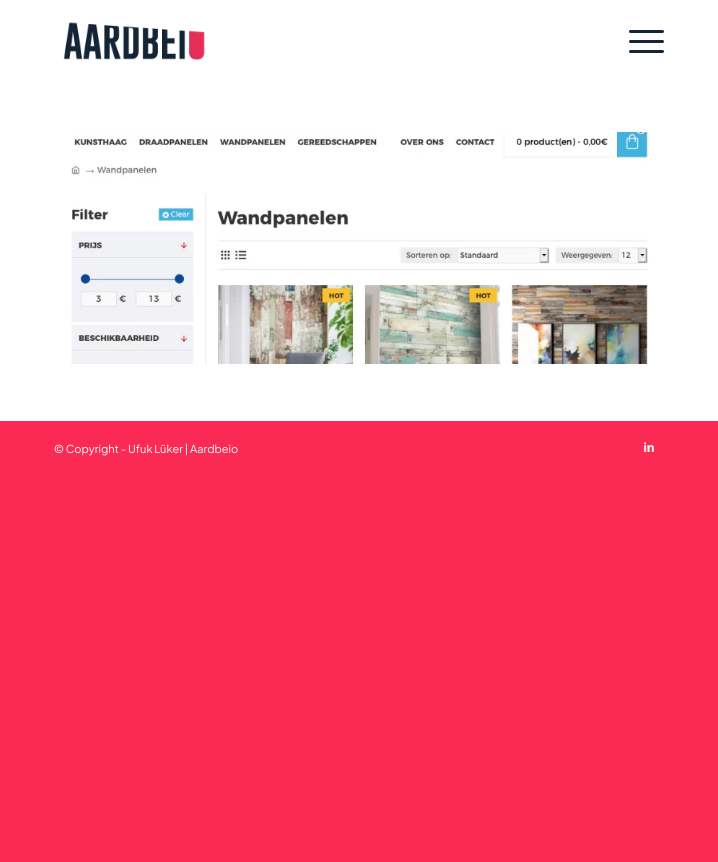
#include <cairo/cairo.h>
#include <math.h>
#include <stddef.h>

static cairo_t *cr;

static void rgb(unsigned color)
{
	cairo_set_source_rgb(cr, (color >> 16) / 255.0, (color >> 8 & 255) / 255.0, (color & 255) / 255.0);
}

static void rrect(double x, double y, double w, double h, double r)
{
	cairo_new_sub_path(cr);
	cairo_arc(cr, x + w - r, y + h - r, r, 0, M_PI / 2);
	cairo_arc(cr, x + r, y + h - r, r, M_PI / 2, M_PI);
	cairo_arc(cr, x + r, y + r, r, M_PI, 1.5 * M_PI);
	cairo_arc(cr, x + w - r, y + r, r, 1.5 * M_PI, 2 * M_PI);
	cairo_close_path(cr);
}

static void image(const char *path, double x, double y, double w, double h)
{
	cairo_surface_t *image = cairo_image_surface_create_from_png(path);
	cairo_save(cr);
	cairo_set_source_surface(cr, image, x, y);
	cairo_rectangle(cr, x, y, w, h);
	cairo_fill(cr);
	cairo_restore(cr);
	cairo_surface_destroy(image);
}

int main(void) {
	cairo_surface_t *surface = cairo_image_surface_create(CAIRO_FORMAT_RGB24, 718, 862);
	cr = cairo_create(surface);
	cairo_font_options_t *options = cairo_font_options_create();
	cairo_font_options_set_hint_metrics(options, CAIRO_HINT_METRICS_OFF);
	cairo_font_options_set_hint_style(options, CAIRO_HINT_STYLE_NONE);
	cairo_set_font_options(cr, options);
	cairo_set_miter_limit(cr, 4);
	rgb(0xfa2a54);
	cairo_paint(cr);
	rgb(0xffffff);
	cairo_rectangle(cr, 0, 0, 718, 421);
	cairo_fill(cr);
	image("img/1.png", 63, 22, 142, 38);
	rgb(0x162636);
	rrect(629, 40, 35, 3, 1.5);
	cairo_fill(cr);
	rrect(629, 30, 35, 3, 1.5);
	cairo_fill(cr);
	rrect(629, 50, 35, 3, 1.5);
	cairo_fill(cr);
	image("img/2.png", 71, 132, 578, 232);
	image("img/3.png", 644, 442, 10, 10);
	cairo_select_font_face(cr, "Plus Jakarta Sans", CAIRO_FONT_SLANT_NORMAL, CAIRO_FONT_WEIGHT_NORMAL);
	cairo_set_font_size(cr, 11);
	rgb(0xffffff);
	cairo_move_to(cr, 54, 453);
	cairo_show_text(cr, "© Copyright - Ufuk Lüker | Aardbeio");
	cairo_surface_write_to_png(surface, "page.png");
	cairo_font_options_destroy(options);
	cairo_destroy(cr);
	cairo_surface_destroy(surface);
	return 0;
}
